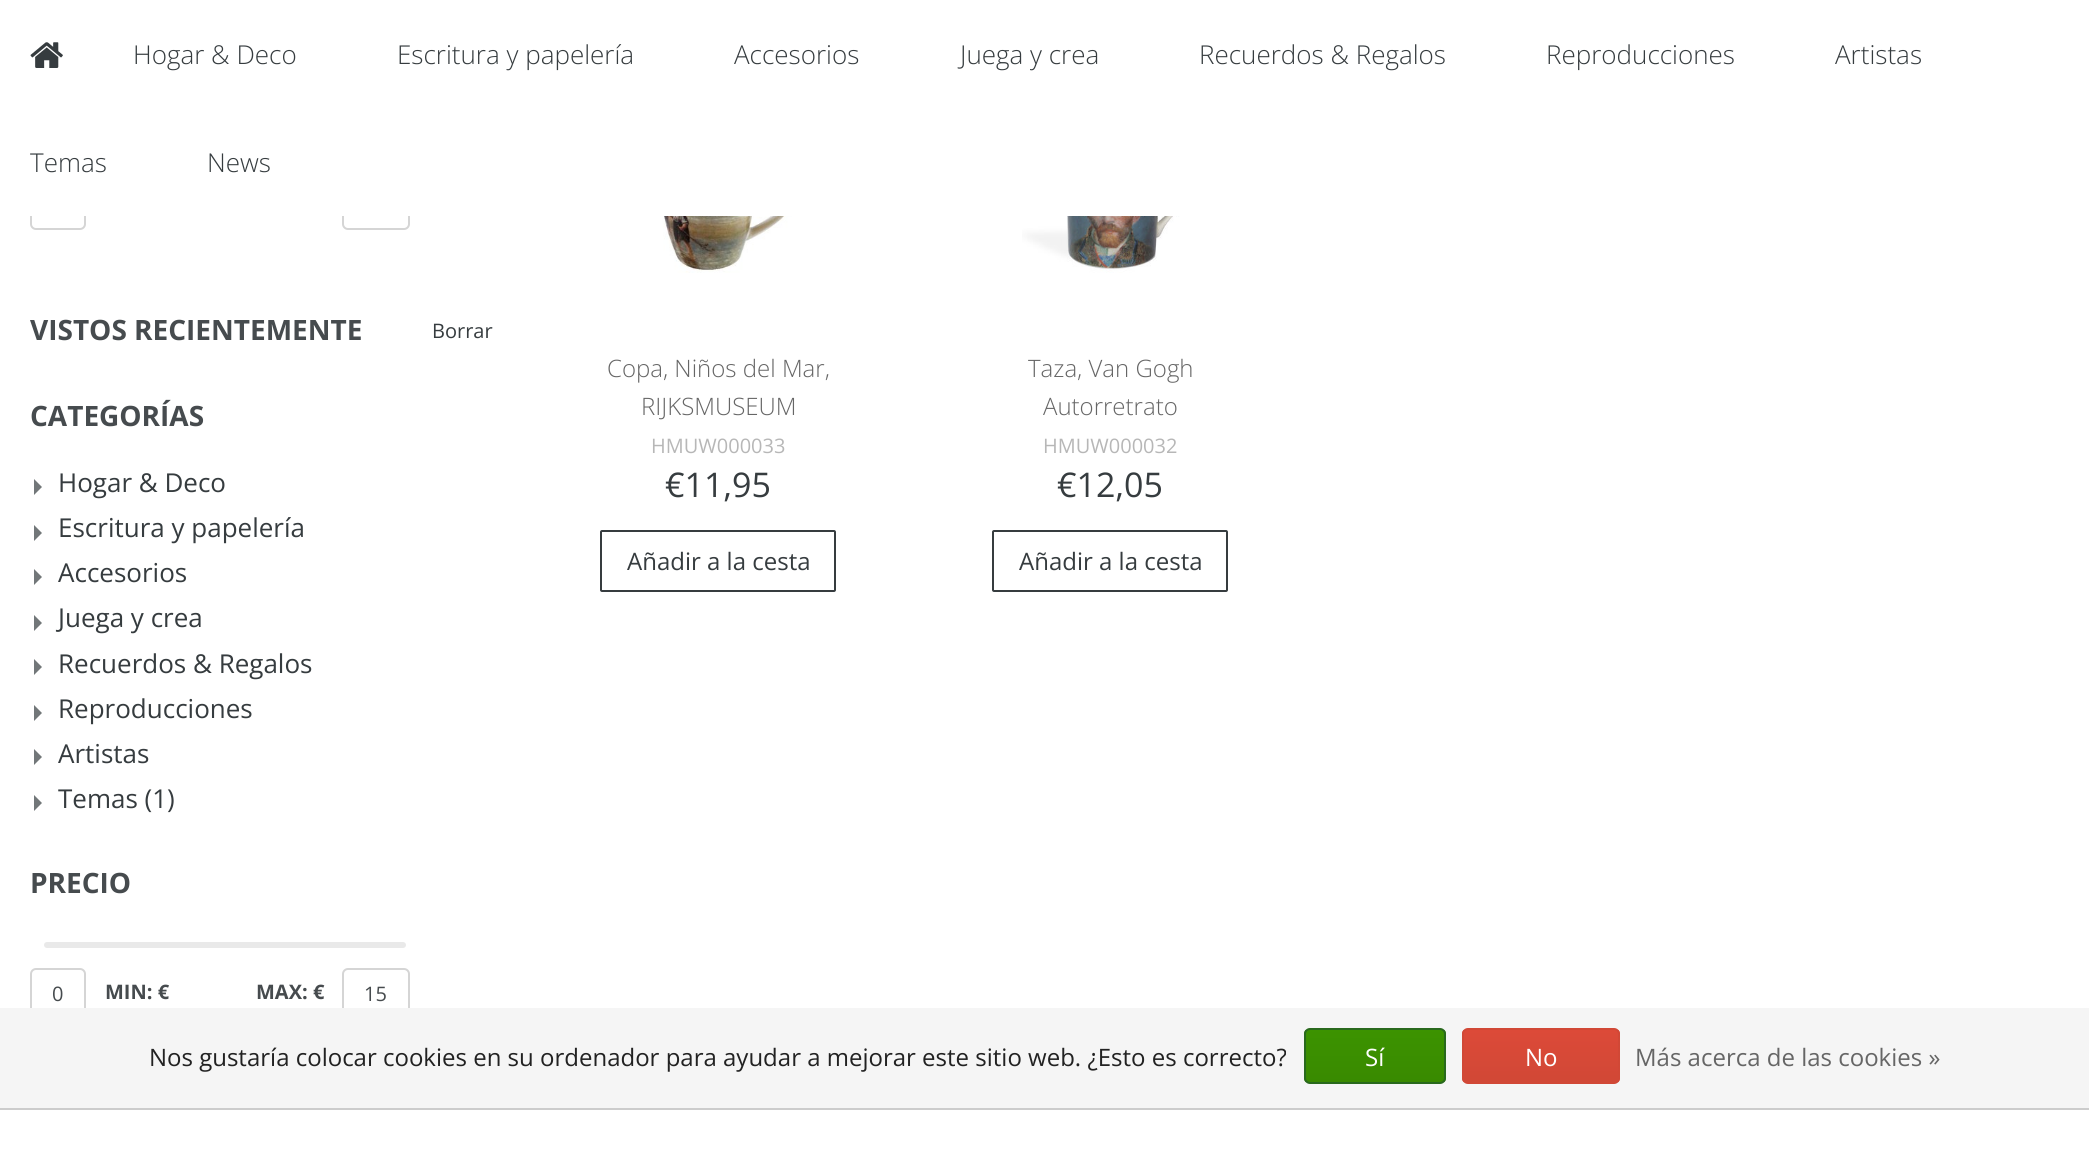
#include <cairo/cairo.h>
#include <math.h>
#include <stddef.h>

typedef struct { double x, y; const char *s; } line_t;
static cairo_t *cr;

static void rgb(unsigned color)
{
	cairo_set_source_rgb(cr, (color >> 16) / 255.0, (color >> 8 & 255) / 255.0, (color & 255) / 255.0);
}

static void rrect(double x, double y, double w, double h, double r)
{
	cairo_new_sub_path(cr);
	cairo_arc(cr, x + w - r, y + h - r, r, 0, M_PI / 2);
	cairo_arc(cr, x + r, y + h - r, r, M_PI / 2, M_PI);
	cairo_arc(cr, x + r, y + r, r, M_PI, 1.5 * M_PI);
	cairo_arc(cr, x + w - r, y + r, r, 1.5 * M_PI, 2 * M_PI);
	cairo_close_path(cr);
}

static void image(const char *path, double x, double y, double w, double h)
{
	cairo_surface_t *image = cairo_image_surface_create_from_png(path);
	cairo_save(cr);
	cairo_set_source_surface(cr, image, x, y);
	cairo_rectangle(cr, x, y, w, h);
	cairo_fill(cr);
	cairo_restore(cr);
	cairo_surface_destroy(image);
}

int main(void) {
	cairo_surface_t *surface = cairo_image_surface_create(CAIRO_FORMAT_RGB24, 2089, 1171);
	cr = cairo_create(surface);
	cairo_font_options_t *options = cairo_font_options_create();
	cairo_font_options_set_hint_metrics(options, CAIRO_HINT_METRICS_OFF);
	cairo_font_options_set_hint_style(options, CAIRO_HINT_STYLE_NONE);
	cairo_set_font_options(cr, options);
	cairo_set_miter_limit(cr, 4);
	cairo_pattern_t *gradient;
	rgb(0xffffff);
	cairo_paint(cr);
	rrect(31, 179, 54, 50, 5);
	rgb(0xd5d5d5);
	cairo_stroke(cr);
	rrect(343, 179, 66, 50, 5);
	cairo_stroke(cr);
	rgb(0xffffff);
	cairo_rectangle(cr, 30, 178, 380, 38);
	cairo_fill(cr);
	image("img/1.png", 30, 42, 33, 26);
	image("img/2.png", 34, 479, 8, 16);
	image("img/2.png", 34, 525, 8, 16);
	image("img/2.png", 34, 569, 8, 16);
	image("img/2.png", 34, 615, 8, 16);
	image("img/2.png", 34, 659, 8, 16);
	image("img/2.png", 34, 705, 8, 16);
	image("img/2.png", 34, 749, 8, 16);
	image("img/2.png", 34, 795, 8, 16);
	rgb(0xe9e9e9);
	rrect(44, 942, 362, 6, 3);
	cairo_fill(cr);
	rrect(31, 969, 54, 50, 5);
	rgb(0xd5d5d5);
	cairo_stroke(cr);
	rrect(343, 969, 66, 50, 5);
	cairo_stroke(cr);
	image("img/3.png", 653, 216, 145, 57);
	rrect(601, 531, 234, 60, 1);
	rgb(0x363c3f);
	cairo_stroke(cr);
	image("img/4.png", 1022, 216, 180, 57);
	rrect(993, 531, 234, 60, 1);
	cairo_stroke(cr);
	rgb(0xf5f5f5);
	cairo_rectangle(cr, 0, 1008, 2089, 100);
	cairo_fill(cr);
	rgb(0xcccccc);
	cairo_rectangle(cr, 0, 1108, 2089, 2);
	cairo_fill(cr);
	cairo_save(cr);
	rrect(1304, 1028, 142, 56, 6);
	cairo_clip(cr);
	gradient = cairo_pattern_create_linear(1375, 1030, 1375, 1082);
	cairo_pattern_add_color_stop_rgba(gradient, 0, 0.235, 0.576, 0, 1);
	cairo_pattern_add_color_stop_rgba(gradient, 1, 0.224, 0.541, 0, 1);
	cairo_set_source(cr, gradient);
	cairo_pattern_destroy(gradient);
	cairo_rectangle(cr, 1304, 1030, 142, 52);
	cairo_fill(cr);
	cairo_restore(cr);
	rrect(1305, 1029, 140, 54, 5);
	rgb(0x29691d);
	cairo_stroke(cr);
	cairo_save(cr);
	rrect(1462, 1028, 158, 56, 6);
	cairo_clip(cr);
	gradient = cairo_pattern_create_linear(1541, 1030, 1541, 1082);
	cairo_pattern_add_color_stop_rgba(gradient, 0, 0.863, 0.29, 0.22, 1);
	cairo_pattern_add_color_stop_rgba(gradient, 1, 0.82, 0.282, 0.212, 1);
	cairo_set_source(cr, gradient);
	cairo_pattern_destroy(gradient);
	cairo_rectangle(cr, 1462, 1030, 158, 52);
	cairo_fill(cr);
	cairo_restore(cr);
	rrect(1463, 1029, 156, 54, 5);
	rgb(0xd14836);
	cairo_stroke(cr);
	cairo_select_font_face(cr, "Open Sans Light", CAIRO_FONT_SLANT_NORMAL, CAIRO_FONT_WEIGHT_NORMAL);
	cairo_set_font_size(cr, 26);
	rgb(0x363c3f);
	{
		static const line_t items[] = {
			{133, 64, "Hogar & Deco"},
			{397, 64, "Escritura y papelería"},
			{734, 64, "Accesorios"},
			{960, 64, "Juega y crea"},
			{1199, 64, "Recuerdos & Regalos"},
			{1546, 64, "Reproducciones"},
			{1835, 64, "Artistas"},
			{30, 172, "Temas"},
			{207, 172, "News"},
		};
		for (size_t i = 0; i < sizeof items / sizeof *items; i++) {
			cairo_move_to(cr, items[i].x, items[i].y);
			cairo_show_text(cr, items[i].s);
		}
	}
	cairo_select_font_face(cr, "Open Sans", CAIRO_FONT_SLANT_NORMAL, CAIRO_FONT_WEIGHT_BOLD);
	cairo_set_font_size(cr, 28);
	rgb(0x464b4e);
	cairo_move_to(cr, 30, 340);
	cairo_show_text(cr, "VISTOS RECIENTEMENTE");
	cairo_select_font_face(cr, "Open Sans", CAIRO_FONT_SLANT_NORMAL, CAIRO_FONT_WEIGHT_NORMAL);
	cairo_set_font_size(cr, 20);
	rgb(0x363c3f);
	cairo_move_to(cr, 432, 338);
	cairo_show_text(cr, "Borrar");
	cairo_select_font_face(cr, "Open Sans", CAIRO_FONT_SLANT_NORMAL, CAIRO_FONT_WEIGHT_BOLD);
	cairo_set_font_size(cr, 28);
	rgb(0x464b4e);
	cairo_move_to(cr, 30, 426);
	cairo_show_text(cr, "CATEGORÍAS");
	cairo_select_font_face(cr, "Open Sans", CAIRO_FONT_SLANT_NORMAL, CAIRO_FONT_WEIGHT_NORMAL);
	cairo_set_font_size(cr, 26);
	rgb(0x363c3f);
	{
		static const line_t items[] = {
			{58, 492, "Hogar & Deco"},
			{58, 537, "Escritura y papelería"},
			{58, 582, "Accesorios"},
			{58, 627, "Juega y crea"},
			{58, 673, "Recuerdos & Regalos"},
			{58, 718, "Reproducciones"},
			{58, 763, "Artistas"},
			{58, 808, "Temas (1)"},
		};
		for (size_t i = 0; i < sizeof items / sizeof *items; i++) {
			cairo_move_to(cr, items[i].x, items[i].y);
			cairo_show_text(cr, items[i].s);
		}
	}
	cairo_select_font_face(cr, "Open Sans", CAIRO_FONT_SLANT_NORMAL, CAIRO_FONT_WEIGHT_BOLD);
	cairo_set_font_size(cr, 28);
	rgb(0x464b4e);
	cairo_move_to(cr, 30, 893);
	cairo_show_text(cr, "PRECIO");
	cairo_select_font_face(cr, "Open Sans", CAIRO_FONT_SLANT_NORMAL, CAIRO_FONT_WEIGHT_NORMAL);
	cairo_set_font_size(cr, 20);
	cairo_move_to(cr, 52, 1001);
	cairo_show_text(cr, "0");
	cairo_select_font_face(cr, "Open Sans", CAIRO_FONT_SLANT_NORMAL, CAIRO_FONT_WEIGHT_BOLD);
	cairo_move_to(cr, 105, 999);
	cairo_show_text(cr, "MIN: €");
	cairo_move_to(cr, 256, 999);
	cairo_show_text(cr, "MAX: €");
	cairo_select_font_face(cr, "Open Sans", CAIRO_FONT_SLANT_NORMAL, CAIRO_FONT_WEIGHT_NORMAL);
	cairo_move_to(cr, 364, 1001);
	cairo_show_text(cr, "15");
	cairo_select_font_face(cr, "Open Sans Light", CAIRO_FONT_SLANT_NORMAL, CAIRO_FONT_WEIGHT_NORMAL);
	cairo_set_font_size(cr, 24);
	rgb(0x666666);
	cairo_move_to(cr, 607, 377);
	cairo_show_text(cr, "Copa, Niños del Mar,");
	cairo_move_to(cr, 641, 415);
	cairo_show_text(cr, "RIJKSMUSEUM");
	cairo_select_font_face(cr, "Open Sans", CAIRO_FONT_SLANT_NORMAL, CAIRO_FONT_WEIGHT_NORMAL);
	cairo_set_font_size(cr, 20);
	rgb(0xb7b7b7);
	cairo_move_to(cr, 651, 453);
	cairo_show_text(cr, "HMUW000033");
	cairo_set_font_size(cr, 34);
	rgb(0x363c3f);
	cairo_move_to(cr, 665, 497);
	cairo_show_text(cr, "€11,95");
	cairo_set_font_size(cr, 24);
	cairo_move_to(cr, 627, 570);
	cairo_show_text(cr, "Añadir a la cesta");
	cairo_select_font_face(cr, "Open Sans Light", CAIRO_FONT_SLANT_NORMAL, CAIRO_FONT_WEIGHT_NORMAL);
	rgb(0x666666);
	cairo_move_to(cr, 1028, 377);
	cairo_show_text(cr, "Taza, Van Gogh");
	cairo_move_to(cr, 1043, 415);
	cairo_show_text(cr, "Autorretrato");
	cairo_select_font_face(cr, "Open Sans", CAIRO_FONT_SLANT_NORMAL, CAIRO_FONT_WEIGHT_NORMAL);
	cairo_set_font_size(cr, 20);
	rgb(0xb7b7b7);
	cairo_move_to(cr, 1043, 453);
	cairo_show_text(cr, "HMUW000032");
	cairo_set_font_size(cr, 34);
	rgb(0x363c3f);
	cairo_move_to(cr, 1057, 497);
	cairo_show_text(cr, "€12,05");
	cairo_set_font_size(cr, 24);
	cairo_move_to(cr, 1019, 570);
	cairo_show_text(cr, "Añadir a la cesta");
	rgb(0x222222);
	cairo_move_to(cr, 149, 1066);
	cairo_show_text(cr, "Nos gustaría colocar cookies en su ordenador para ayudar a mejorar este sitio web. ¿Esto es correcto?");
	rgb(0xffffff);
	cairo_move_to(cr, 1365, 1066);
	cairo_show_text(cr, "Sí");
	cairo_move_to(cr, 1525, 1066);
	cairo_show_text(cr, "No");
	rgb(0x666666);
	cairo_move_to(cr, 1635, 1066);
	cairo_show_text(cr, "Más acerca de las cookies »");
	cairo_surface_write_to_png(surface, "page.png");
	cairo_font_options_destroy(options);
	cairo_destroy(cr);
	cairo_surface_destroy(surface);
	return 0;
}
